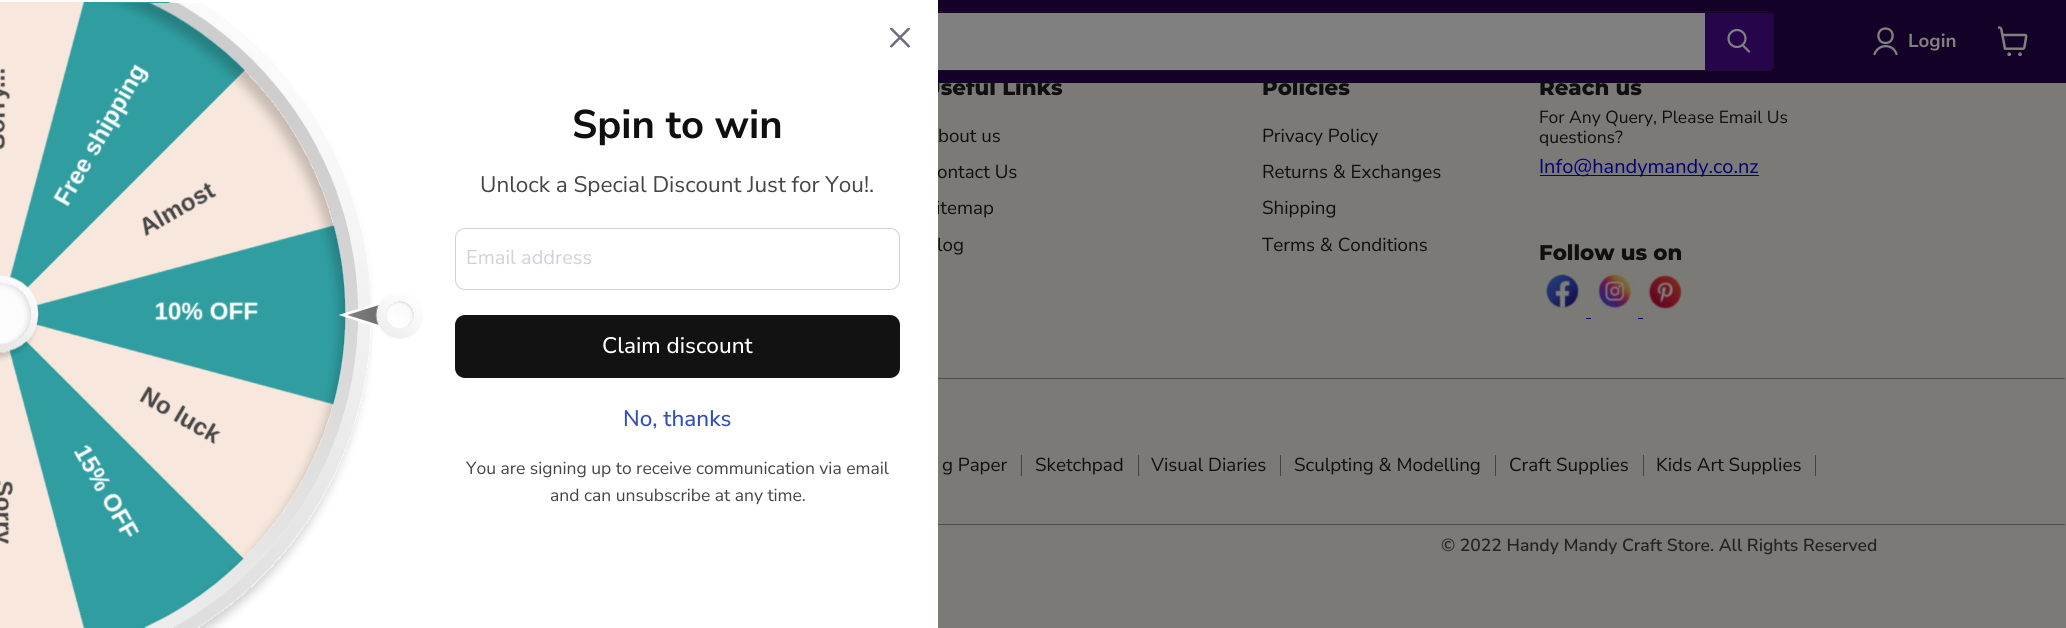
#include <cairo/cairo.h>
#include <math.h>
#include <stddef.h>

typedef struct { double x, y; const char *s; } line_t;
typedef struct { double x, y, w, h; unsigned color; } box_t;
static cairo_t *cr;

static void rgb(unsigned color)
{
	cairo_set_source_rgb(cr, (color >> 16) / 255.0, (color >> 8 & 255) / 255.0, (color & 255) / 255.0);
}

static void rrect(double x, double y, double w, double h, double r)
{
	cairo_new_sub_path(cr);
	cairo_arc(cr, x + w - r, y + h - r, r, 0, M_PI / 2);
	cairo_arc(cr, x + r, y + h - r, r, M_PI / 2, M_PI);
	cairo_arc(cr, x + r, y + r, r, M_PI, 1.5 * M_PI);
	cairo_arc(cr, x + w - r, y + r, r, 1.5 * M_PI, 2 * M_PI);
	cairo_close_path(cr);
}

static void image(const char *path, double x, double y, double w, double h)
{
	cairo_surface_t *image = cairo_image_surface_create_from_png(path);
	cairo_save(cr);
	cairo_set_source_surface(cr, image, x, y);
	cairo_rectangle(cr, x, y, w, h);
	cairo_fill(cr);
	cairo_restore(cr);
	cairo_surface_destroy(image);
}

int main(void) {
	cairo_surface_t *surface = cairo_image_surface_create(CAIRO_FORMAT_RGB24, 2066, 628);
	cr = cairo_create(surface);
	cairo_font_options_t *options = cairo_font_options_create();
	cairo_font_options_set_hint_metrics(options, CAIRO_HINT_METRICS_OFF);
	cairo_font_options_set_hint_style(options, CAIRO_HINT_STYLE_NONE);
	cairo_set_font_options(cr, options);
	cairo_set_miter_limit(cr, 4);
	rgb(0x7b7a77);
	cairo_paint(cr);
	rgb(0x000077);
	cairo_rectangle(cr, 1540, 175, 219, 1);
	cairo_fill(cr);
	image("img/6.png", 1540, 273, 43, 36);
	image("img/7.png", 1596, 273, 38, 37);
	image("img/8.png", 1648, 273, 37, 37);
	{
		static const box_t items[] = {
			{1586, 318, 5, 1, 0x000077},
			{1638, 318, 5, 1, 0x000077},
			{938, 378, 1128, 1, 0x505050},
			{2065, 378, 1, 3, 0x777777},
			{938, 379, 1128, 1, 0x777777},
			{1021, 455, 1, 21, 0x454443},
			{1138, 455, 1, 21, 0x454443},
			{1280, 455, 1, 21, 0x454443},
			{1495, 455, 1, 21, 0x454443},
			{1643, 455, 1, 21, 0x454443},
			{1815, 455, 1, 21, 0x454443},
			{938, 524, 1128, 1, 0x505050},
			{2065, 524, 1, 3, 0x777777},
			{938, 525, 1128, 1, 0x777777},
		};
		for (size_t i = 0; i < sizeof items / sizeof *items; i++) {
			rgb(items[i].color);
			cairo_rectangle(cr, items[i].x, items[i].y, items[i].w, items[i].h);
			cairo_fill(cr);
		}
	}
	cairo_select_font_face(cr, "Montserrat ExtraBold", CAIRO_FONT_SLANT_NORMAL, CAIRO_FONT_WEIGHT_NORMAL);
	cairo_set_font_size(cr, 21.25);
	rgb(0x0f0f0f);
	cairo_move_to(cr, 924, 95);
	cairo_show_text(cr, "Useful Links");
	cairo_select_font_face(cr, "Nunito Sans", CAIRO_FONT_SLANT_NORMAL, CAIRO_FONT_WEIGHT_NORMAL);
	cairo_set_font_size(cr, 18.75);
	{
		static const line_t items[] = {
			{938, 142, "bout us"},
			{937, 178, "ontact Us"},
			{936, 214, "itemap"},
			{937, 251, "log"},
		};
		for (size_t i = 0; i < sizeof items / sizeof *items; i++) {
			cairo_move_to(cr, items[i].x, items[i].y);
			cairo_show_text(cr, items[i].s);
		}
	}
	cairo_select_font_face(cr, "Montserrat ExtraBold", CAIRO_FONT_SLANT_NORMAL, CAIRO_FONT_WEIGHT_NORMAL);
	cairo_set_font_size(cr, 21.25);
	cairo_move_to(cr, 1262, 95);
	cairo_show_text(cr, "Policies");
	cairo_select_font_face(cr, "Nunito Sans", CAIRO_FONT_SLANT_NORMAL, CAIRO_FONT_WEIGHT_NORMAL);
	cairo_set_font_size(cr, 18.75);
	{
		static const line_t items[] = {
			{1262, 142, "Privacy Policy"},
			{1262, 178, "Returns & Exchanges"},
			{1262, 214, "Shipping"},
			{1262, 251, "Terms & Conditions"},
		};
		for (size_t i = 0; i < sizeof items / sizeof *items; i++) {
			cairo_move_to(cr, items[i].x, items[i].y);
			cairo_show_text(cr, items[i].s);
		}
	}
	cairo_select_font_face(cr, "Montserrat ExtraBold", CAIRO_FONT_SLANT_NORMAL, CAIRO_FONT_WEIGHT_NORMAL);
	cairo_set_font_size(cr, 21.25);
	cairo_move_to(cr, 1539, 95);
	cairo_show_text(cr, "Reach us");
	rgb(0x140128);
	cairo_rectangle(cr, 938, 0, 1128, 83);
	cairo_fill(cr);
	rrect(293.5, 11.5, 1480, 59, 4.5);
	cairo_set_source_rgba(cr, 0.251, 0.251, 0.251, 0.2);
	cairo_set_line_width(cr, 1);
	cairo_stroke(cr);
	rgb(0xffffff);
	cairo_rectangle(cr, 0, 0, 938, 628);
	cairo_fill(cr);
	image("img/2.png", 0, 2, 346, 626);
	image("img/3.png", 0, 3, 373, 625);
	image("img/4.png", 338, 294, 85, 45);
	image("img/5.png", 890, 28, 20, 20);
	rrect(455.5, 228.5, 444, 61, 9.5);
	rgb(0xd1d1db);
	cairo_stroke(cr);
	cairo_select_font_face(cr, "Nunito Sans", CAIRO_FONT_SLANT_NORMAL, CAIRO_FONT_WEIGHT_NORMAL);
	cairo_set_font_size(cr, 20);
	cairo_move_to(cr, 466, 264);
	cairo_show_text(cr, "Email address");
	rgb(0x121212);
	rrect(455, 315, 445, 63, 10);
	cairo_fill(cr);
	cairo_select_font_face(cr, "Nunito Sans Medium", CAIRO_FONT_SLANT_NORMAL, CAIRO_FONT_WEIGHT_NORMAL);
	cairo_set_font_size(cr, 22.5);
	rgb(0xffffff);
	cairo_move_to(cr, 602, 353);
	cairo_show_text(cr, "Claim discount");
	cairo_select_font_face(cr, "Nunito Sans", CAIRO_FONT_SLANT_NORMAL, CAIRO_FONT_WEIGHT_NORMAL);
	cairo_set_font_size(cr, 17.5);
	rgb(0x454545);
	cairo_move_to(cr, 550, 501);
	cairo_show_text(cr, "and can unsubscribe at any time.");
	cairo_move_to(cr, 466, 474);
	cairo_show_text(cr, "You are signing up to receive communication via email");
	cairo_select_font_face(cr, "Nunito Sans Medium", CAIRO_FONT_SLANT_NORMAL, CAIRO_FONT_WEIGHT_NORMAL);
	cairo_set_font_size(cr, 22.5);
	rgb(0x334fb4);
	cairo_move_to(cr, 623, 426);
	cairo_show_text(cr, "No, thanks");
	cairo_select_font_face(cr, "Nunito Sans", CAIRO_FONT_SLANT_NORMAL, CAIRO_FONT_WEIGHT_NORMAL);
	rgb(0x454545);
	cairo_move_to(cr, 480, 192);
	cairo_show_text(cr, "Unlock a Special Discount Just for You!.");
	cairo_select_font_face(cr, "Nunito Sans", CAIRO_FONT_SLANT_NORMAL, CAIRO_FONT_WEIGHT_BOLD);
	cairo_set_font_size(cr, 40);
	rgb(0x0f0f0f);
	cairo_move_to(cr, 572, 138);
	cairo_show_text(cr, "Spin to win");
	rgb(0x808080);
	cairo_rectangle(cr, 938, 13, 767, 57);
	cairo_fill(cr);
	rgb(0x27054a);
	cairo_new_path(cr);
	cairo_move_to(cr, 1705.5, 13.5);
	cairo_line_to(cr, 1769, 13.5);
	cairo_curve_to(cr, 1771, 13.5, 1772.5, 15, 1772.5, 17);
	cairo_line_to(cr, 1772.5, 66);
	cairo_curve_to(cr, 1772.5, 68, 1771, 69.5, 1769, 69.5);
	cairo_line_to(cr, 1705.5, 69.5);
	cairo_close_path(cr);
	cairo_fill_preserve(cr);
	cairo_stroke(cr);
	cairo_new_path(cr);
	cairo_move_to(cr, 1749, 51.5);
	cairo_line_to(cr, 1743, 45.5);
	rgb(0x808080);
	cairo_set_line_width(cr, 2.2);
	cairo_set_line_cap(cr, CAIRO_LINE_CAP_ROUND);
	cairo_stroke(cr);
	cairo_arc(cr, 1737, 38.5, 8.5, 0, 2 * M_PI);
	cairo_set_line_cap(cr, CAIRO_LINE_CAP_BUTT);
	cairo_stroke(cr);
	image("img/1.png", 1998, 26, 30, 30);
	cairo_new_path(cr);
	cairo_move_to(cr, 1885.5, 43);
	cairo_curve_to(cr, 1895, 43, 1895, 28.5, 1885.5, 28.5);
	cairo_curve_to(cr, 1876, 28.5, 1876, 43, 1885.5, 43);
	cairo_close_path(cr);
	cairo_move_to(cr, 1896.5, 54);
	cairo_curve_to(cr, 1893, 43.5, 1878.5, 43.5, 1874.5, 54);
	rgb(0x80807d);
	cairo_set_line_width(cr, 2.3);
	cairo_set_line_cap(cr, CAIRO_LINE_CAP_ROUND);
	cairo_set_line_join(cr, CAIRO_LINE_JOIN_ROUND);
	cairo_stroke(cr);
	cairo_set_font_size(cr, 18.75);
	cairo_move_to(cr, 1908, 47);
	cairo_show_text(cr, "Login");
	cairo_select_font_face(cr, "Nunito Sans", CAIRO_FONT_SLANT_NORMAL, CAIRO_FONT_WEIGHT_NORMAL);
	cairo_set_font_size(cr, 17.5);
	rgb(0x0f0f0f);
	cairo_move_to(cr, 1539, 123);
	cairo_show_text(cr, "For Any Query, Please Email Us");
	cairo_move_to(cr, 1539, 143);
	cairo_show_text(cr, "questions?");
	cairo_set_font_size(cr, 20);
	rgb(0x000077);
	cairo_move_to(cr, 1539, 173);
	cairo_show_text(cr, "Info@handymandy.co.nz");
	cairo_select_font_face(cr, "Montserrat ExtraBold", CAIRO_FONT_SLANT_NORMAL, CAIRO_FONT_WEIGHT_NORMAL);
	cairo_set_font_size(cr, 21.25);
	rgb(0x0f0f0f);
	cairo_move_to(cr, 1539, 260);
	cairo_show_text(cr, "Follow us on");
	cairo_select_font_face(cr, "Nunito Sans", CAIRO_FONT_SLANT_NORMAL, CAIRO_FONT_WEIGHT_NORMAL);
	cairo_set_font_size(cr, 18.75);
	{
		static const line_t items[] = {
			{942, 471, "g Paper"},
			{1035, 471, "Sketchpad"},
			{1151, 471, "Visual Diaries"},
			{1294, 471, "Sculpting & Modelling"},
			{1509, 471, "Craft Supplies"},
			{1656, 471, "Kids Art Supplies"},
		};
		for (size_t i = 0; i < sizeof items / sizeof *items; i++) {
			cairo_move_to(cr, items[i].x, items[i].y);
			cairo_show_text(cr, items[i].s);
		}
	}
	cairo_select_font_face(cr, "Nunito Sans SemiBold", CAIRO_FONT_SLANT_NORMAL, CAIRO_FONT_WEIGHT_NORMAL);
	cairo_set_font_size(cr, 17.5);
	rgb(0x242424);
	cairo_move_to(cr, 1441, 551);
	cairo_show_text(cr, "© 2022 Handy Mandy Craft Store. All Rights Reserved");
	cairo_surface_write_to_png(surface, "page.png");
	cairo_font_options_destroy(options);
	cairo_destroy(cr);
	cairo_surface_destroy(surface);
	return 0;
}
